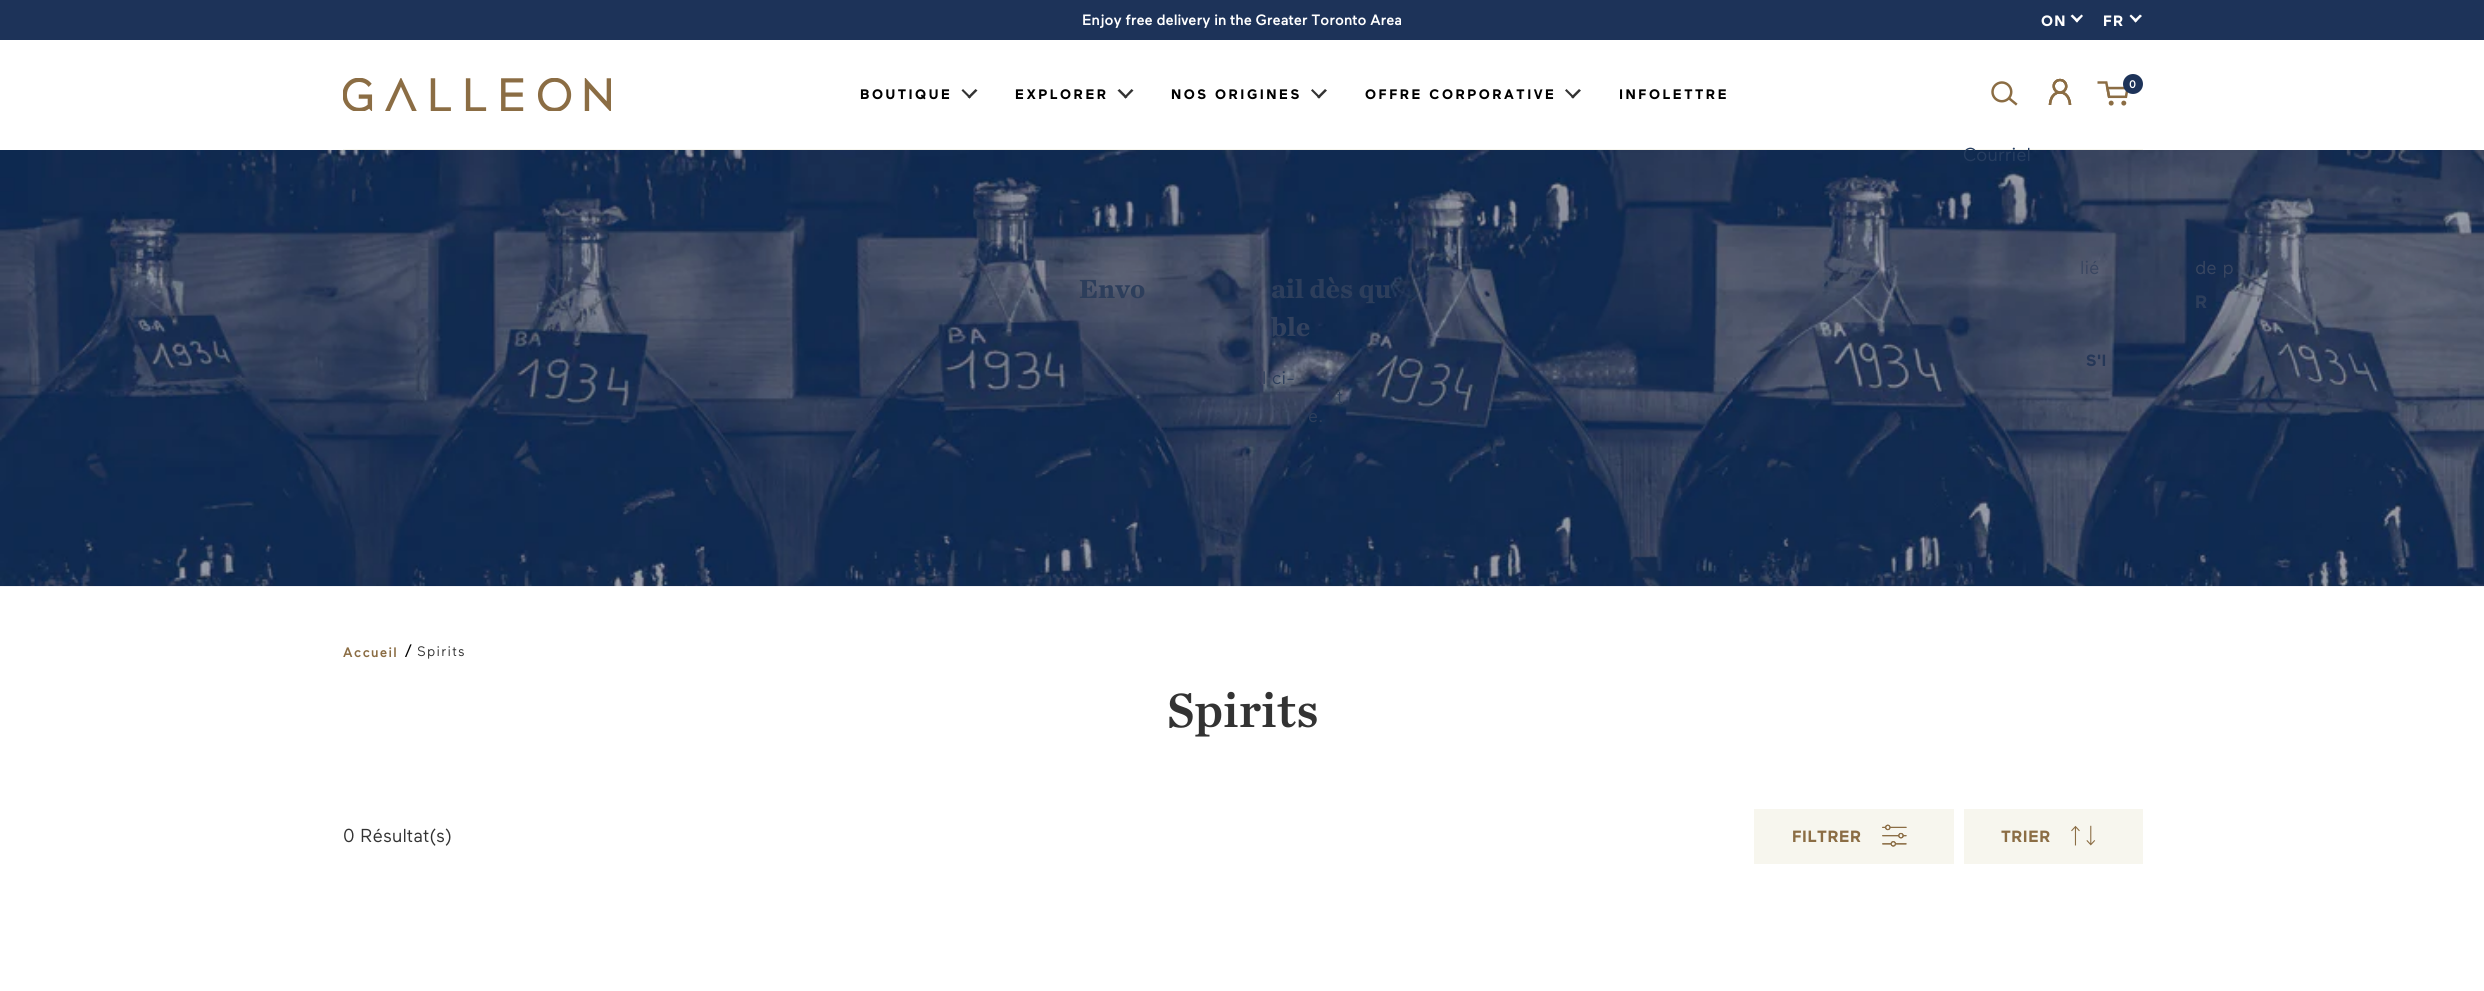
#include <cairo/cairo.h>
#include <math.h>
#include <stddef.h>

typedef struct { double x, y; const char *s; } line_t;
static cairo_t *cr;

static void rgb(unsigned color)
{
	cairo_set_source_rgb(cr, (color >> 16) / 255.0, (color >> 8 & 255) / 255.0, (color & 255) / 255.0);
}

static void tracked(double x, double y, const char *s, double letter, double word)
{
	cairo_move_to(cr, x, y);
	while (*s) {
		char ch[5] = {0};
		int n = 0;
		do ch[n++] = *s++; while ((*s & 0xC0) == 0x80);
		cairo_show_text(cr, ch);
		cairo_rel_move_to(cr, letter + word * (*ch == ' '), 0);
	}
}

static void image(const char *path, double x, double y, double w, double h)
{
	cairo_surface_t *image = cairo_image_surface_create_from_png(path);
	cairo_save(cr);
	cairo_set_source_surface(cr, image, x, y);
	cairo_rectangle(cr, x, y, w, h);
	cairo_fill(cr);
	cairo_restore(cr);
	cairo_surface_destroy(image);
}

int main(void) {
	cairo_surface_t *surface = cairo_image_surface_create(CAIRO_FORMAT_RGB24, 2484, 991);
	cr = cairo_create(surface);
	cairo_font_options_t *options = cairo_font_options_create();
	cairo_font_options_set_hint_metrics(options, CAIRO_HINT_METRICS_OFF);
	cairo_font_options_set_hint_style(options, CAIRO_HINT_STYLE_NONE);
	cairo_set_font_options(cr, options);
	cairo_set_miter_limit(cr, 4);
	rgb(0xffffff);
	cairo_paint(cr);
	rgb(0x1d3359);
	cairo_rectangle(cr, 0, 0, 2484, 40);
	cairo_fill(cr);
	rgb(0xffffff);
	cairo_new_path(cr);
	cairo_move_to(cr, 2083, 16);
	cairo_line_to(cr, 2077, 22.5);
	cairo_line_to(cr, 2075, 20.5);
	cairo_line_to(cr, 2081.5, 14.5);
	cairo_close_path(cr);
	cairo_fill(cr);
	cairo_new_path(cr);
	cairo_move_to(cr, 2078.5, 20.5);
	cairo_line_to(cr, 2077, 22.5);
	cairo_line_to(cr, 2070.5, 16);
	cairo_line_to(cr, 2072.5, 14.5);
	cairo_close_path(cr);
	cairo_fill(cr);
	cairo_new_path(cr);
	cairo_move_to(cr, 2142, 16);
	cairo_line_to(cr, 2135.5, 22.5);
	cairo_line_to(cr, 2134, 20.5);
	cairo_line_to(cr, 2140, 14.5);
	cairo_close_path(cr);
	cairo_fill(cr);
	cairo_new_path(cr);
	cairo_move_to(cr, 2137.5, 20.5);
	cairo_line_to(cr, 2135.5, 22.5);
	cairo_line_to(cr, 2129.5, 16);
	cairo_line_to(cr, 2131, 14.5);
	cairo_close_path(cr);
	cairo_fill(cr);
	rgb(0xf7f6ee);
	cairo_rectangle(cr, 343, 149, 1800, 1);
	cairo_fill(cr);
	image("img/1.png", 343, 78, 268, 33);
	image("img/2.png", 1991, 81, 27, 25);
	image("img/3.png", 2048, 78, 24, 27);
	image("img/4.png", 2097, 81, 31, 25);
	rgb(0x1d3359);
	cairo_arc(cr, 2133, 84, 10, 0, 2 * M_PI);
	cairo_fill(cr);
	rgb(0x333333);
	cairo_new_path(cr);
	cairo_move_to(cr, 977.5, 90.5);
	cairo_line_to(cr, 969.5, 98.5);
	cairo_line_to(cr, 967.5, 97);
	cairo_line_to(cr, 975.5, 89);
	cairo_close_path(cr);
	cairo_fill(cr);
	cairo_new_path(cr);
	cairo_move_to(cr, 971, 97);
	cairo_line_to(cr, 969.5, 98.5);
	cairo_line_to(cr, 961.5, 90.5);
	cairo_line_to(cr, 963, 89);
	cairo_close_path(cr);
	cairo_fill(cr);
	cairo_new_path(cr);
	cairo_move_to(cr, 1133.5, 90.5);
	cairo_line_to(cr, 1125.5, 98.5);
	cairo_line_to(cr, 1124, 97);
	cairo_line_to(cr, 1131.5, 89);
	cairo_close_path(cr);
	cairo_fill(cr);
	cairo_new_path(cr);
	cairo_move_to(cr, 1127.5, 97);
	cairo_line_to(cr, 1125.5, 98.5);
	cairo_line_to(cr, 1117.5, 90.5);
	cairo_line_to(cr, 1119.5, 89);
	cairo_close_path(cr);
	cairo_fill(cr);
	cairo_new_path(cr);
	cairo_move_to(cr, 1327, 90.5);
	cairo_line_to(cr, 1319, 98.5);
	cairo_line_to(cr, 1317, 97);
	cairo_line_to(cr, 1325, 89);
	cairo_close_path(cr);
	cairo_fill(cr);
	cairo_new_path(cr);
	cairo_move_to(cr, 1320.5, 97);
	cairo_line_to(cr, 1319, 98.5);
	cairo_line_to(cr, 1311, 90.5);
	cairo_line_to(cr, 1312.5, 89);
	cairo_close_path(cr);
	cairo_fill(cr);
	cairo_new_path(cr);
	cairo_move_to(cr, 1581, 90.5);
	cairo_line_to(cr, 1573, 98.5);
	cairo_line_to(cr, 1571, 97);
	cairo_line_to(cr, 1579, 89);
	cairo_close_path(cr);
	cairo_fill(cr);
	cairo_new_path(cr);
	cairo_move_to(cr, 1574.5, 97);
	cairo_line_to(cr, 1573, 98.5);
	cairo_line_to(cr, 1565, 90.5);
	cairo_line_to(cr, 1566.5, 89);
	cairo_close_path(cr);
	cairo_fill(cr);
	image("img/5.png", 0, 150, 2484, 437);
	rgb(0xf7f6ee);
	cairo_rectangle(cr, 1754, 809, 200, 55);
	cairo_fill(cr);
	image("img/6.png", 1882, 824, 25, 23);
	cairo_rectangle(cr, 1964, 809, 179, 55);
	cairo_fill(cr);
	image("img/7.png", 2071, 825, 25, 21);
	cairo_select_font_face(cr, "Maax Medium", CAIRO_FONT_SLANT_NORMAL, CAIRO_FONT_WEIGHT_NORMAL);
	cairo_set_font_size(cr, 15);
	rgb(0xffffff);
	cairo_move_to(cr, 1082, 25);
	cairo_show_text(cr, "Enjoy free delivery in the Greater Toronto Area");
	cairo_select_font_face(cr, "Maax", CAIRO_FONT_SLANT_NORMAL, CAIRO_FONT_WEIGHT_BOLD);
	tracked(2041, 26, "ON", 1.25, 0);
	tracked(2103, 26, "FR", 1.25, 0);
	cairo_select_font_face(cr, "Maax Medium", CAIRO_FONT_SLANT_NORMAL, CAIRO_FONT_WEIGHT_NORMAL);
	cairo_set_font_size(cr, 11);
	tracked(2129, 88, "0", -1, 0);
	cairo_select_font_face(cr, "Maax", CAIRO_FONT_SLANT_NORMAL, CAIRO_FONT_WEIGHT_BOLD);
	cairo_set_font_size(cr, 13.75);
	rgb(0x000000);
	{
		static const line_t items[] = {
			{860, 99, "BOUTIQUE"},
			{1015, 99, "EXPLORER"},
			{1171, 99, "NOS ORIGINES"},
			{1365, 99, "OFFRE CORPORATIVE"},
			{1619, 99, "INFOLETTRE"},
		};
		for (size_t i = 0; i < sizeof items / sizeof *items; i++) {
			tracked(items[i].x, items[i].y, items[i].s, 2.5, 0);
		}
	}
	cairo_select_font_face(cr, "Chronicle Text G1", CAIRO_FONT_SLANT_NORMAL, CAIRO_FONT_WEIGHT_BOLD);
	cairo_set_font_size(cr, 27.5);
	rgb(0x2d3e5b);
	cairo_move_to(cr, 1079, 298);
	cairo_show_text(cr, "Envo");
	cairo_move_to(cr, 1271, 298);
	cairo_show_text(cr, "ail dès qu");
	rgb(0x33425e);
	cairo_move_to(cr, 1271, 336);
	cairo_show_text(cr, "ble");
	cairo_select_font_face(cr, "Maax", CAIRO_FONT_SLANT_NORMAL, CAIRO_FONT_WEIGHT_NORMAL);
	cairo_set_font_size(cr, 18);
	rgb(0x2d3e5b);
	{
		static const line_t items[] = {
			{1262, 384, "l ci-"},
			{1337, 403, "t"},
			{1308, 422, "e."},
		};
		for (size_t i = 0; i < sizeof items / sizeof *items; i++) {
			cairo_move_to(cr, items[i].x, items[i].y);
			cairo_show_text(cr, items[i].s);
		}
	}
	cairo_set_font_size(cr, 18.75);
	rgb(0x263d60);
	cairo_move_to(cr, 1963, 161);
	cairo_show_text(cr, "Courriel");
	rgb(0x394660);
	cairo_move_to(cr, 2080, 274);
	cairo_show_text(cr, "lié");
	cairo_move_to(cr, 2195, 274);
	cairo_show_text(cr, "de p");
	cairo_select_font_face(cr, "Maax", CAIRO_FONT_SLANT_NORMAL, CAIRO_FONT_WEIGHT_BOLD);
	cairo_set_font_size(cr, 18);
	rgb(0x2d3e5b);
	tracked(2195, 308, "R", 0.5, 0);
	cairo_set_font_size(cr, 16.25);
	rgb(0x253757);
	tracked(2086, 366, "S'I", 0.5, 0);
	cairo_select_font_face(cr, "Maax Medium", CAIRO_FONT_SLANT_NORMAL, CAIRO_FONT_WEIGHT_NORMAL);
	cairo_set_font_size(cr, 13.75);
	rgb(0x8b6d44);
	tracked(343, 657, "Accueil", 1.25, 0);
	cairo_select_font_face(cr, "Maax", CAIRO_FONT_SLANT_NORMAL, CAIRO_FONT_WEIGHT_NORMAL);
	cairo_set_font_size(cr, 18);
	rgb(0x000000);
	cairo_move_to(cr, 403, 657);
	cairo_show_text(cr, "/");
	cairo_set_font_size(cr, 13.75);
	rgb(0x333333);
	tracked(417, 656, "Spirits", 1.25, 0);
	cairo_select_font_face(cr, "Chronicle Text G1", CAIRO_FONT_SLANT_NORMAL, CAIRO_FONT_WEIGHT_NORMAL);
	cairo_set_font_size(cr, 50);
	cairo_move_to(cr, 1167, 727);
	cairo_show_text(cr, "Spirits");
	cairo_select_font_face(cr, "Maax", CAIRO_FONT_SLANT_NORMAL, CAIRO_FONT_WEIGHT_NORMAL);
	cairo_set_font_size(cr, 18.75);
	cairo_move_to(cr, 343, 842);
	cairo_show_text(cr, "0 Résultat(s)");
	cairo_select_font_face(cr, "Maax", CAIRO_FONT_SLANT_NORMAL, CAIRO_FONT_WEIGHT_BOLD);
	cairo_set_font_size(cr, 16.25);
	rgb(0x8b6d44);
	tracked(1792, 842, "FILTRER", 0.5, 0);
	tracked(2001, 842, "TRIER", 0.5, 0);
	cairo_surface_write_to_png(surface, "page.png");
	cairo_font_options_destroy(options);
	cairo_destroy(cr);
	cairo_surface_destroy(surface);
	return 0;
}
